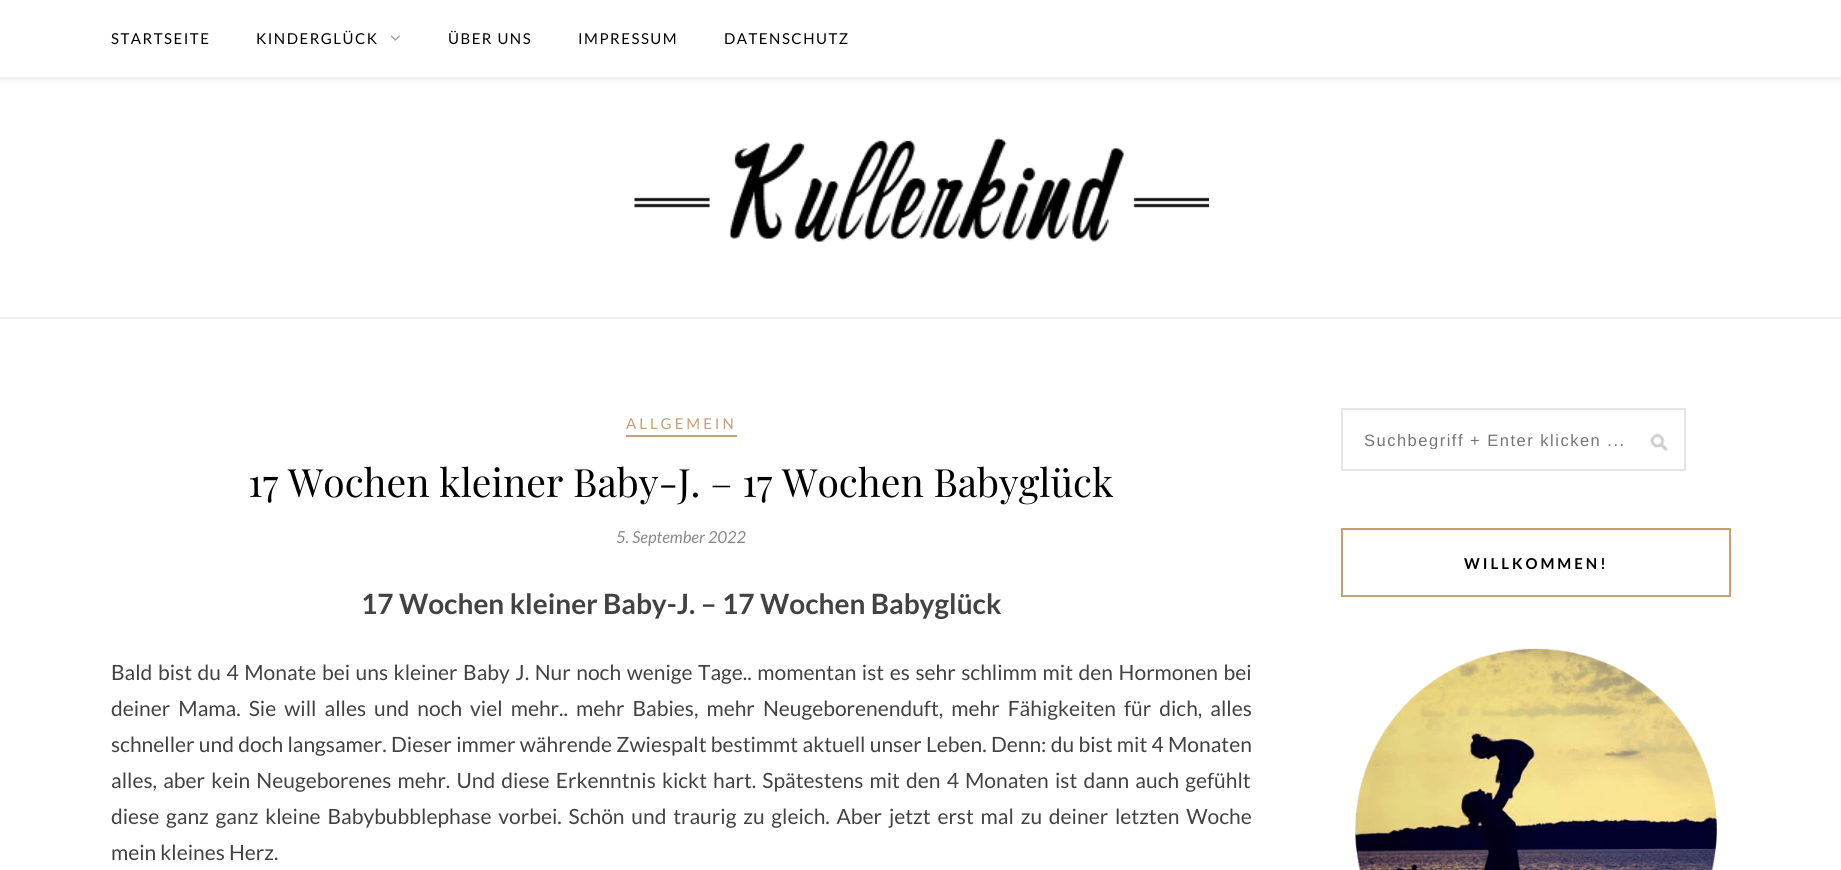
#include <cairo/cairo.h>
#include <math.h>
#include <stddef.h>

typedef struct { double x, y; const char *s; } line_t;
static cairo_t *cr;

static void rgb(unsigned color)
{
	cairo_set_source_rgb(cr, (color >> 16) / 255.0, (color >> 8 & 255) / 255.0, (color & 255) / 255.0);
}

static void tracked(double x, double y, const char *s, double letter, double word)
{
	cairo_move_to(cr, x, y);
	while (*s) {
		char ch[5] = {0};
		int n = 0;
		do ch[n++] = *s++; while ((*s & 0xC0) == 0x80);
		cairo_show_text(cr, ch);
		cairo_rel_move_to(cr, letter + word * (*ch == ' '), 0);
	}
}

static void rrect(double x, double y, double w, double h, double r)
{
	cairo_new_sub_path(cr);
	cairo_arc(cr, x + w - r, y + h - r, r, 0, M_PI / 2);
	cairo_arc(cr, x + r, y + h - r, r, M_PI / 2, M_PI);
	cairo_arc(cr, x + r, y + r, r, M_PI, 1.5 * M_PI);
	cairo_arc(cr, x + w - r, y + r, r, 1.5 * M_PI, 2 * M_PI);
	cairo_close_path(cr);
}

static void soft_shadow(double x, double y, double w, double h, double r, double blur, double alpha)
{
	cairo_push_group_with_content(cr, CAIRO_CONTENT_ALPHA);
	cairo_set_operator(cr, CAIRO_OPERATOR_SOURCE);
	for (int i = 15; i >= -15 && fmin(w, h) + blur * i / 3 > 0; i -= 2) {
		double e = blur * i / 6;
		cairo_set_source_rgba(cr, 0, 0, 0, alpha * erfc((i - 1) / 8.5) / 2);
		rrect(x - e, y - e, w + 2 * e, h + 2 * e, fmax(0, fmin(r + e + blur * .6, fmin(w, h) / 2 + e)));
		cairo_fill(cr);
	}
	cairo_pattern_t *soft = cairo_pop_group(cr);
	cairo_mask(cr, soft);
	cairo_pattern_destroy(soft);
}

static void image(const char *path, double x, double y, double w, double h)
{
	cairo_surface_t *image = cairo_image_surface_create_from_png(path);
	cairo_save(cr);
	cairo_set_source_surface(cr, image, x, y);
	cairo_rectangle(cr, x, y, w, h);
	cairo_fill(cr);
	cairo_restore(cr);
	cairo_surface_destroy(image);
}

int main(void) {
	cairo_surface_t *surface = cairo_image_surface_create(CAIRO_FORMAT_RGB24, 1841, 870);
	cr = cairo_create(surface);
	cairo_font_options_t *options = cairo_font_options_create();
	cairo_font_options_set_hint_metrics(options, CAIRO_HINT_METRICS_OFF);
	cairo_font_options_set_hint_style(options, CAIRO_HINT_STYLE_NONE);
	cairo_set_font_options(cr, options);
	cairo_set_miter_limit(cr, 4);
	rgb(0xffffff);
	cairo_paint(cr);
	rgb(0xbebebe);
	soft_shadow(0, 2, 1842, 76, 0, 4, 0.46);
	rgb(0xffffff);
	cairo_rectangle(cr, 0, 0, 1841, 77);
	cairo_fill(cr);
	image("img/1.png", 390, 35, 10, 6);
	rgb(0xeeeeee);
	cairo_rectangle(cr, 0, 317, 1841, 2);
	cairo_fill(cr);
	image("img/2.png", 634, 137, 575, 105);
	rgb(0xc69f73);
	cairo_rectangle(cr, 626, 435, 111, 2);
	cairo_fill(cr);
	image("img/3.png", 1649, 433, 20, 19);
	cairo_rectangle(cr, 1342, 409, 343, 61);
	rgb(0xe5e5e5);
	cairo_stroke(cr);
	cairo_rectangle(cr, 1342, 529, 388, 67);
	rgb(0xc69f73);
	cairo_stroke(cr);
	image("img/4.png", 1355, 648, 362, 222);
	cairo_select_font_face(cr, "Lato", CAIRO_FONT_SLANT_NORMAL, CAIRO_FONT_WEIGHT_NORMAL);
	cairo_set_font_size(cr, 15);
	rgb(0x000000);
	{
		static const line_t items[] = {
			{111, 44, "STARTSEITE"},
			{256, 44, "KINDERGLÜCK"},
			{448, 44, "ÜBER UNS"},
			{578, 44, "IMPRESSUM"},
			{724, 44, "DATENSCHUTZ"},
		};
		for (size_t i = 0; i < sizeof items / sizeof *items; i++) {
			tracked(items[i].x, items[i].y, items[i].s, 1.5, 0);
		}
	}
	rgb(0xc69f73);
	tracked(626, 429, "ALLGEMEIN", 3, 0);
	cairo_select_font_face(cr, "Playfair Display", CAIRO_FONT_SLANT_NORMAL, CAIRO_FONT_WEIGHT_NORMAL);
	cairo_set_font_size(cr, 39);
	rgb(0x000000);
	cairo_move_to(cr, 248, 497);
	cairo_show_text(cr, "17 Wochen kleiner Baby-J. – 17 Wochen Babyglück");
	cairo_select_font_face(cr, "Lato", CAIRO_FONT_SLANT_ITALIC, CAIRO_FONT_WEIGHT_NORMAL);
	cairo_set_font_size(cr, 16.5);
	rgb(0x888888);
	cairo_move_to(cr, 616, 543);
	cairo_show_text(cr, "5. September 2022");
	cairo_select_font_face(cr, "Lato", CAIRO_FONT_SLANT_NORMAL, CAIRO_FONT_WEIGHT_BOLD);
	cairo_set_font_size(cr, 28);
	rgb(0x424242);
	cairo_move_to(cr, 361, 614);
	cairo_show_text(cr, "17 Wochen kleiner Baby-J. – 17 Wochen Babyglück");
	cairo_select_font_face(cr, "Lato", CAIRO_FONT_SLANT_NORMAL, CAIRO_FONT_WEIGHT_NORMAL);
	cairo_set_font_size(cr, 21);
	tracked(111, 680, "Bald bist du 4 Monate bei uns kleiner Baby J. Nur noch wenige Tage.. momentan ist es sehr schlimm mit den Hormonen bei", 0, 1.5);
	tracked(111, 716, "deiner Mama. Sie will alles und noch viel mehr.. mehr Babies, mehr Neugeborenenduft, mehr Fähigkeiten für dich, alles", 0, 4);
	tracked(111, 752, "schneller und doch langsamer. Dieser immer währende Zwiespalt bestimmt aktuell unser Leben. Denn: du bist mit 4 Monaten", 0, 0.25);
	tracked(111, 788, "alles, aber kein Neugeborenes mehr. Und diese Erkenntnis kickt hart. Spätestens mit den 4 Monaten ist dann auch gefühlt", 0, 2.1);
	tracked(111, 824, "diese ganz ganz kleine Babybubblephase vorbei. Schön und traurig zu gleich. Aber jetzt erst mal zu deiner letzten Woche", 0, 2.75);
	cairo_move_to(cr, 111, 860);
	cairo_show_text(cr, "mein kleines Herz.");
	cairo_save(cr);
	cairo_rectangle(cr, 1364, 431, 300, 18);
	cairo_clip(cr);
	cairo_select_font_face(cr, "Liberation Sans", CAIRO_FONT_SLANT_NORMAL, CAIRO_FONT_WEIGHT_NORMAL);
	cairo_set_font_size(cr, 16.5);
	rgb(0x757575);
	tracked(1364, 446, "Suchbegriff + Enter klicken ...", 1.5, 0);
	cairo_restore(cr);
	cairo_select_font_face(cr, "Lato", CAIRO_FONT_SLANT_NORMAL, CAIRO_FONT_WEIGHT_BOLD);
	cairo_set_font_size(cr, 15);
	rgb(0x000000);
	tracked(1464, 569, "WILLKOMMEN!", 3, 0);
	cairo_surface_write_to_png(surface, "page.png");
	cairo_font_options_destroy(options);
	cairo_destroy(cr);
	cairo_surface_destroy(surface);
	return 0;
}
